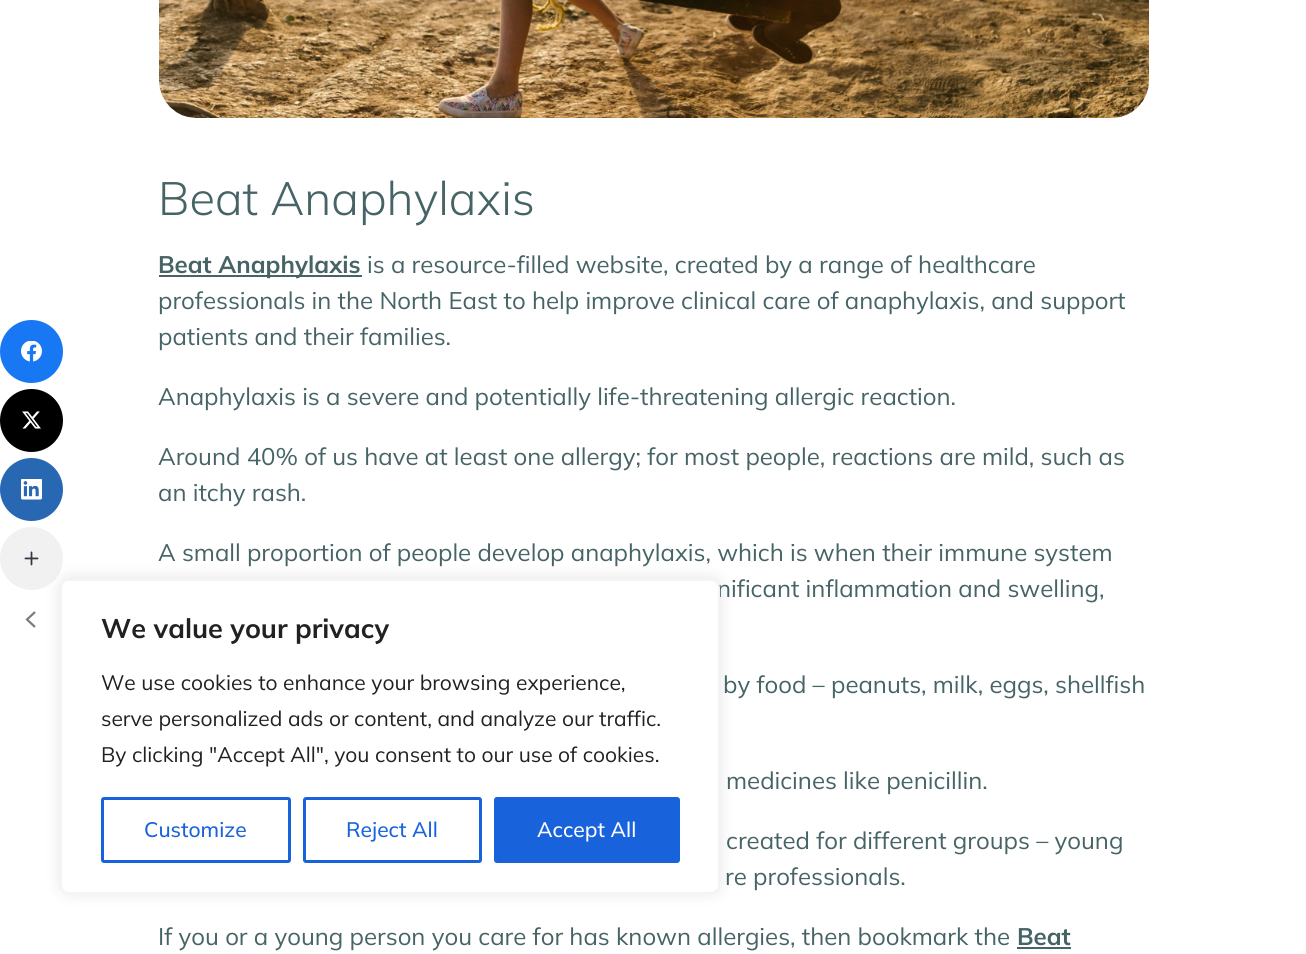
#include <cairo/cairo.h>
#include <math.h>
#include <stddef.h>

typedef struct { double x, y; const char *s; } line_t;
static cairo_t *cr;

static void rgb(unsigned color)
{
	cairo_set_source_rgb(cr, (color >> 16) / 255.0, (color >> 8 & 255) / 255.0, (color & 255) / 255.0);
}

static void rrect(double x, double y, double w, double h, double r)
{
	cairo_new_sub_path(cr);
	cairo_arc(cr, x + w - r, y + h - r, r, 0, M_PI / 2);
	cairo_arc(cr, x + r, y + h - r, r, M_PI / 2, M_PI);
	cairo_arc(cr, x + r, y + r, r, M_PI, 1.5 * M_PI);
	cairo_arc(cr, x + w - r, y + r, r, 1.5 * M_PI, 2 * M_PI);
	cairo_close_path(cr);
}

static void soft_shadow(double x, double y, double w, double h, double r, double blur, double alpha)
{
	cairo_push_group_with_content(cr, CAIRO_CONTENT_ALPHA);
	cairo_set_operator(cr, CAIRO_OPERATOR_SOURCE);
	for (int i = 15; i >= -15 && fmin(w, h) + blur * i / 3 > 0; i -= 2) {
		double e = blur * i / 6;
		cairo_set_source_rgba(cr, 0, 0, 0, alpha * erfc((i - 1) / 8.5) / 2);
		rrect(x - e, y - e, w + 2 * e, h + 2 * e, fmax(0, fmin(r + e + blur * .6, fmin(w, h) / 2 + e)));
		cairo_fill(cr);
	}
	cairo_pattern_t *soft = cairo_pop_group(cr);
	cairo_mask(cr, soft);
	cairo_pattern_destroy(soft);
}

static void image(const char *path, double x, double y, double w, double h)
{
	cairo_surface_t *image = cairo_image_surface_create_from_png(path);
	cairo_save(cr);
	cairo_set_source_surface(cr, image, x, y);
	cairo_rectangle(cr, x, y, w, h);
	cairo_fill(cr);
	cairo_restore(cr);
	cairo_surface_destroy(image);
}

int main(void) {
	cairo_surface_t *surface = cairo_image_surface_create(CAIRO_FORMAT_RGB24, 1306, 954);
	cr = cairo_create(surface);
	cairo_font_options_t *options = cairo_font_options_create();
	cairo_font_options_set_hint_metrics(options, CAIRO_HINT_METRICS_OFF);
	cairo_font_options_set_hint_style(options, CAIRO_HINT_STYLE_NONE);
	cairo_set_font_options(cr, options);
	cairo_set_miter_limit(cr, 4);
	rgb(0xffffff);
	cairo_paint(cr);
	rgb(0x1877f2);
	cairo_arc(cr, 31.5, 351.5, 31.5, 0, 2 * M_PI);
	cairo_fill(cr);
	image("img/1.png", 21, 341, 21, 21);
	rgb(0x000000);
	cairo_arc(cr, 31.5, 420.5, 31.5, 0, 2 * M_PI);
	cairo_fill(cr);
	image("img/2.png", 22, 411, 19, 18);
	rgb(0x2867b2);
	cairo_arc(cr, 31.5, 489.5, 31.5, 0, 2 * M_PI);
	cairo_fill(cr);
	image("img/3.png", 21, 479, 21, 21);
	rgb(0xf1f1f1);
	cairo_arc(cr, 31.5, 558.5, 31.5, 0, 2 * M_PI);
	cairo_fill(cr);
	image("img/4.png", 24, 551, 15, 15);
	cairo_new_path(cr);
	cairo_move_to(cr, 35, 612);
	cairo_line_to(cr, 27, 619.5);
	cairo_line_to(cr, 35, 627);
	rgb(0x7b7b7b);
	cairo_set_line_width(cr, 2.2);
	cairo_stroke(cr);
	image("img/5.png", 159, 0, 990, 118);
	rgb(0x466365);
	cairo_rectangle(cr, 159, 275, 203, 2);
	cairo_fill(cr);
	cairo_rectangle(cr, 1017, 947, 54, 2);
	cairo_fill(cr);
	rgb(0xacabab);
	soft_shadow(60, 578, 660, 315, 9, 7.5, 0.3);
	cairo_select_font_face(cr, "Mulish Light", CAIRO_FONT_SLANT_NORMAL, CAIRO_FONT_WEIGHT_NORMAL);
	cairo_set_font_size(cr, 46.75);
	rgb(0x466365);
	cairo_move_to(cr, 158, 215);
	cairo_show_text(cr, "Beat Anaphylaxis");
	cairo_select_font_face(cr, "Mulish", CAIRO_FONT_SLANT_NORMAL, CAIRO_FONT_WEIGHT_BOLD);
	cairo_set_font_size(cr, 24);
	cairo_move_to(cr, 158, 273);
	cairo_show_text(cr, "Beat Anaphylaxis");
	cairo_select_font_face(cr, "Mulish", CAIRO_FONT_SLANT_NORMAL, CAIRO_FONT_WEIGHT_NORMAL);
	{
		static const line_t items[] = {
			{367, 273, "is a resource-filled website, created by a range of healthcare"},
			{158, 309, "professionals in the North East to help improve clinical care of anaphylaxis, and support"},
			{158, 345, "patients and their families."},
			{158, 405, "Anaphylaxis is a severe and potentially life-threatening allergic reaction."},
			{158, 465, "Around 40% of us have at least one allergy; for most people, reactions are mild, such as"},
			{158, 501, "an itchy rash."},
			{158, 561, "A small proportion of people develop anaphylaxis, which is when their immune system"},
			{717, 597, "nificant inflammation and swelling,"},
			{723, 693, "by food – peanuts, milk, eggs, shellfish"},
			{726, 789, "medicines like penicillin."},
			{726, 849, "created for different groups – young"},
			{725, 885, "re professionals."},
			{158, 945, "If you or a young person you care for has known allergies, then bookmark the"},
		};
		for (size_t i = 0; i < sizeof items / sizeof *items; i++) {
			cairo_move_to(cr, items[i].x, items[i].y);
			cairo_show_text(cr, items[i].s);
		}
	}
	cairo_select_font_face(cr, "Mulish", CAIRO_FONT_SLANT_NORMAL, CAIRO_FONT_WEIGHT_BOLD);
	cairo_move_to(cr, 1017, 945);
	cairo_show_text(cr, "Beat");
	rgb(0xffffff);
	rrect(61, 580, 658, 313, 8);
	cairo_fill_preserve(cr);
	rgb(0xf4f4f4);
	cairo_set_line_width(cr, 2);
	cairo_stroke(cr);
	cairo_set_font_size(cr, 27);
	rgb(0x212121);
	cairo_move_to(cr, 101, 638);
	cairo_show_text(cr, "We value your privacy");
	cairo_select_font_face(cr, "Mulish", CAIRO_FONT_SLANT_NORMAL, CAIRO_FONT_WEIGHT_NORMAL);
	cairo_set_font_size(cr, 21);
	{
		static const line_t items[] = {
			{101, 690, "We use cookies to enhance your browsing experience,"},
			{101, 726, "serve personalized ads or content, and analyze our traffic."},
			{101, 762, "By clicking \"Accept All\", you consent to our use of cookies."},
		};
		for (size_t i = 0; i < sizeof items / sizeof *items; i++) {
			cairo_move_to(cr, items[i].x, items[i].y);
			cairo_show_text(cr, items[i].s);
		}
	}
	rrect(102.5, 798.5, 187, 63, 1.5);
	rgb(0x1863dc);
	cairo_set_line_width(cr, 3);
	cairo_stroke(cr);
	cairo_select_font_face(cr, "Mulish Medium", CAIRO_FONT_SLANT_NORMAL, CAIRO_FONT_WEIGHT_NORMAL);
	cairo_move_to(cr, 144, 837);
	cairo_show_text(cr, "Customize");
	rrect(304.5, 798.5, 176, 63, 1.5);
	cairo_stroke(cr);
	cairo_move_to(cr, 346, 837);
	cairo_show_text(cr, "Reject All");
	rrect(495.5, 798.5, 183, 63, 1.5);
	cairo_fill_preserve(cr);
	cairo_stroke(cr);
	rgb(0xffffff);
	cairo_move_to(cr, 537, 837);
	cairo_show_text(cr, "Accept All");
	cairo_surface_write_to_png(surface, "page.png");
	cairo_font_options_destroy(options);
	cairo_destroy(cr);
	cairo_surface_destroy(surface);
	return 0;
}
